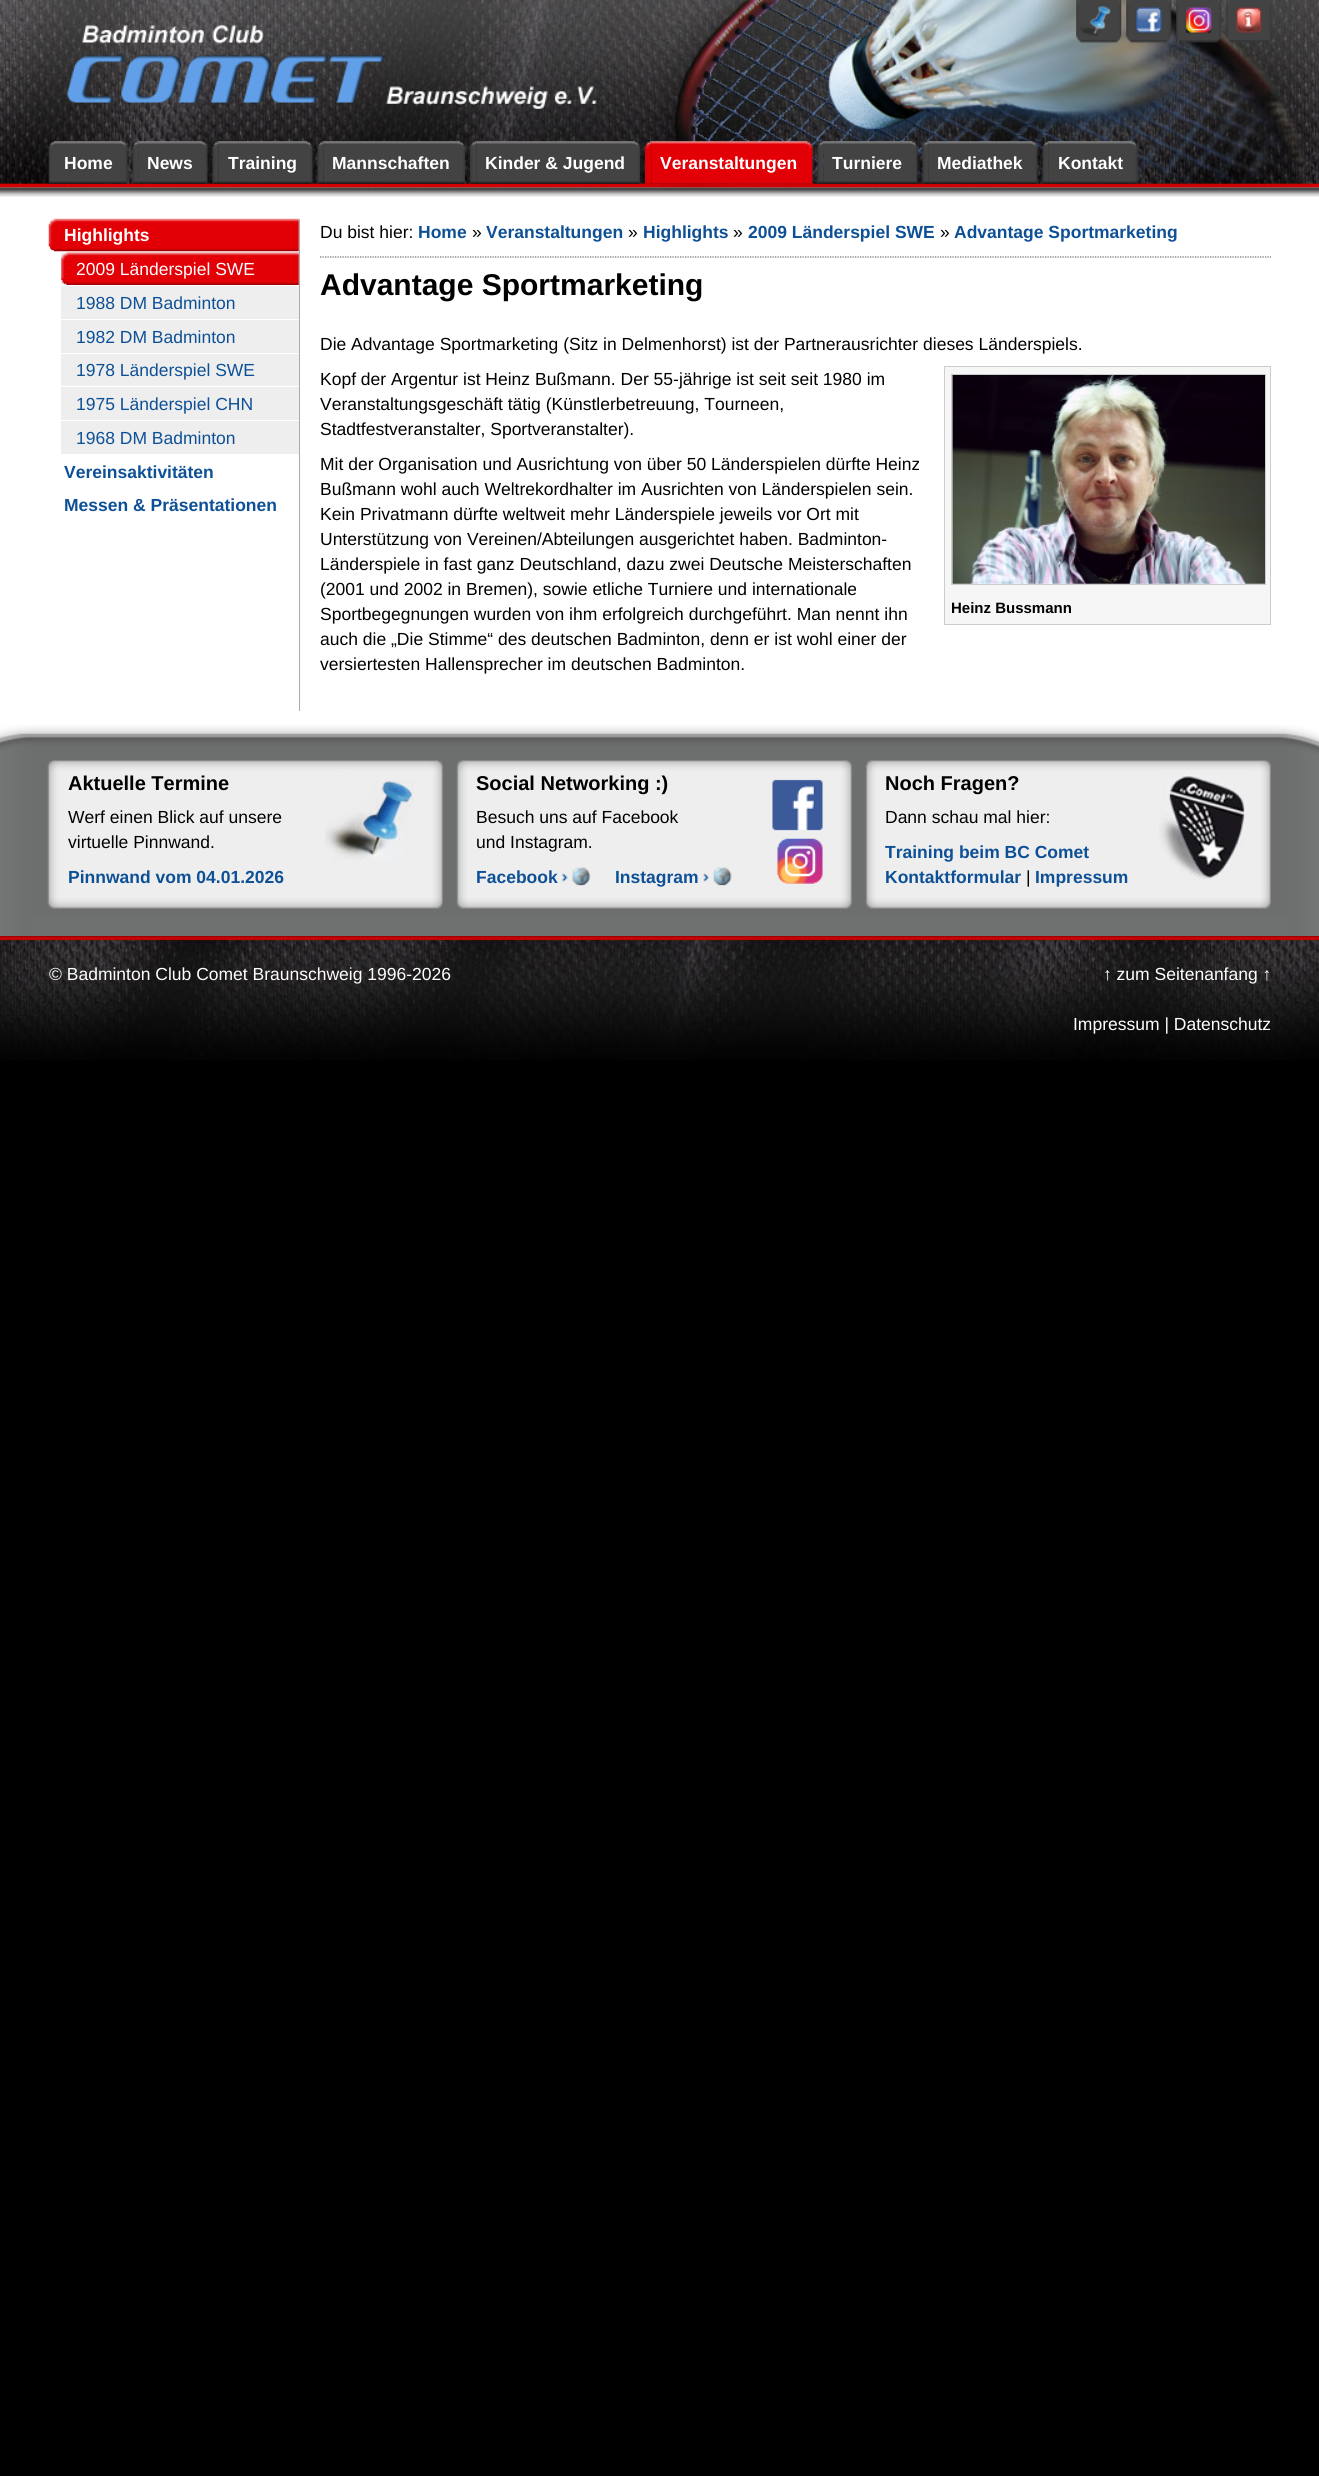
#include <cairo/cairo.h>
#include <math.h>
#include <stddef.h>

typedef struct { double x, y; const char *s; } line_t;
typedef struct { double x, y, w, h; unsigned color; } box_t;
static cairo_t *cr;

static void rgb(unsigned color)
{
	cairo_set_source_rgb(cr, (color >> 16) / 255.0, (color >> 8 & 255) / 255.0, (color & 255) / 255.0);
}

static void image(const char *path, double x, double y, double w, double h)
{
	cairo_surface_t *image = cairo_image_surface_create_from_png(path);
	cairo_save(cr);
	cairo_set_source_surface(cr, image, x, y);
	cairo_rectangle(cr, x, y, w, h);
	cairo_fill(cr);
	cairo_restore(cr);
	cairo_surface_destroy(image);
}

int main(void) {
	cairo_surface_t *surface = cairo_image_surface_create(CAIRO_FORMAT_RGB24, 1319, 2476);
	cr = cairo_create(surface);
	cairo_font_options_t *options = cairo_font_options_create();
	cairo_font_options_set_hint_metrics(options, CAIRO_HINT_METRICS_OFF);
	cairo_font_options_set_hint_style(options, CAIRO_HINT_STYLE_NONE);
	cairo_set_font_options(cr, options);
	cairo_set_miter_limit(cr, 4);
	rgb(0x000000);
	cairo_paint(cr);
	rgb(0xffffff);
	cairo_rectangle(cr, 0, 187, 1319, 538);
	cairo_fill(cr);
	image("img/1.png", 0, 0, 1319, 188);
	image("img/2.png", 67, 0, 1245, 188);
	image("img/3.png", 1076, 0, 46, 43);
	image("img/4.png", 1126, 0, 46, 43);
	image("img/5.png", 1176, 0, 46, 43);
	image("img/6.png", 1226, 0, 45, 43);
	image("img/7.png", 48, 141, 7, 43);
	image("img/8.png", 55, 141, 73, 43);
	image("img/9.png", 132, 141, 7, 43);
	image("img/10.png", 138, 141, 70, 43);
	image("img/11.png", 212, 141, 7, 43);
	image("img/12.png", 218, 141, 95, 43);
	image("img/13.png", 317, 141, 7, 43);
	image("img/14.png", 323, 141, 142, 43);
	image("img/15.png", 470, 141, 7, 43);
	image("img/16.png", 476, 141, 164, 43);
	image("img/17.png", 645, 141, 7, 43);
	image("img/18.png", 651, 141, 162, 43);
	image("img/19.png", 817, 141, 7, 43);
	image("img/20.png", 823, 141, 95, 43);
	image("img/21.png", 922, 141, 7, 43);
	image("img/22.png", 928, 141, 110, 43);
	image("img/23.png", 1042, 141, 7, 43);
	image("img/24.png", 1048, 141, 90, 43);
	image("img/25.png", 0, 187, 1319, 10);
	image("img/26.png", 48, 218, 251, 34);
	rgb(0xeeeeee);
	cairo_rectangle(cr, 61, 253, 238, 32);
	cairo_fill(cr);
	image("img/27.png", 61, 252, 238, 33);
	{
		static const box_t items[] = {
			{61, 286, 238, 33, 0xeeeeee},
			{61, 320, 238, 33, 0xeeeeee},
			{61, 354, 238, 66, 0xeeeeee},
			{61, 386, 238, 1, 0xffffff},
			{61, 421, 238, 33, 0xeeeeee},
			{299, 219, 1, 492, 0xaaaaaa},
		};
		for (size_t i = 0; i < sizeof items / sizeof *items; i++) {
			rgb(items[i].color);
			cairo_rectangle(cr, items[i].x, items[i].y, items[i].w, items[i].h);
			cairo_fill(cr);
		}
	}
	cairo_new_path(cr);
	cairo_move_to(cr, 320, 257);
	cairo_line_to(cr, 1271, 257);
	rgb(0x666666);
	cairo_set_line_width(cr, 1.2);
	cairo_set_dash(cr, (double[]){1.25, 1.25}, 2, 0);
	cairo_stroke(cr);
	rgb(0xf6f6f6);
	cairo_rectangle(cr, 944.5, 366.5, 326, 258);
	cairo_fill_preserve(cr);
	rgb(0xcccccc);
	cairo_set_line_width(cr, 1);
	cairo_set_dash(cr, NULL, 0, 0);
	cairo_stroke(cr);
	cairo_rectangle(cr, 951.5, 374.5, 314, 210);
	cairo_stroke(cr);
	image("img/28.png", 952, 375, 313, 209);
	image("img/29.png", 0, 725, 1319, 211);
	image("img/30.png", 325, 781, 89, 80);
	image("img/31.png", 772, 779, 51, 105);
	image("img/32.png", 562, 867, 29, 19);
	image("img/33.png", 703, 867, 29, 19);
	image("img/34.png", 1159, 771, 87, 110);
	image("img/35.png", 0, 936, 1319, 124);
	cairo_select_font_face(cr, "Liberation Sans", CAIRO_FONT_SLANT_NORMAL, CAIRO_FONT_WEIGHT_BOLD);
	cairo_set_font_size(cr, 17.5);
	rgb(0xffffff);
	{
		static const line_t items[] = {
			{64, 169, "Home"},
			{147, 169, "News"},
			{228, 169, "Training"},
			{332, 169, "Mannschaften"},
			{485, 169, "Kinder & Jugend"},
			{660, 169, "Veranstaltungen"},
			{832, 169, "Turniere"},
			{937, 169, "Mediathek"},
			{1058, 169, "Kontakt"},
			{64, 241, "Highlights"},
		};
		for (size_t i = 0; i < sizeof items / sizeof *items; i++) {
			cairo_move_to(cr, items[i].x, items[i].y);
			cairo_show_text(cr, items[i].s);
		}
	}
	cairo_select_font_face(cr, "Liberation Sans", CAIRO_FONT_SLANT_NORMAL, CAIRO_FONT_WEIGHT_NORMAL);
	cairo_move_to(cr, 76, 275);
	cairo_show_text(cr, "2009 Länderspiel SWE");
	rgb(0x0e5096);
	{
		static const line_t items[] = {
			{76, 309, "1988 DM Badminton"},
			{76, 343, "1982 DM Badminton"},
			{76, 376, "1978 Länderspiel SWE"},
			{76, 410, "1975 Länderspiel CHN"},
			{76, 444, "1968 DM Badminton"},
		};
		for (size_t i = 0; i < sizeof items / sizeof *items; i++) {
			cairo_move_to(cr, items[i].x, items[i].y);
			cairo_show_text(cr, items[i].s);
		}
	}
	cairo_select_font_face(cr, "Liberation Sans", CAIRO_FONT_SLANT_NORMAL, CAIRO_FONT_WEIGHT_BOLD);
	cairo_move_to(cr, 64, 478);
	cairo_show_text(cr, "Vereinsaktivitäten");
	cairo_move_to(cr, 64, 511);
	cairo_show_text(cr, "Messen & Präsentationen");
	cairo_select_font_face(cr, "Liberation Sans", CAIRO_FONT_SLANT_NORMAL, CAIRO_FONT_WEIGHT_NORMAL);
	rgb(0x000000);
	cairo_move_to(cr, 320, 238);
	cairo_show_text(cr, "Du bist hier:");
	cairo_select_font_face(cr, "Liberation Sans", CAIRO_FONT_SLANT_NORMAL, CAIRO_FONT_WEIGHT_BOLD);
	rgb(0x0e5096);
	cairo_move_to(cr, 418, 238);
	cairo_show_text(cr, "Home");
	cairo_select_font_face(cr, "Liberation Sans", CAIRO_FONT_SLANT_NORMAL, CAIRO_FONT_WEIGHT_NORMAL);
	rgb(0x000000);
	cairo_move_to(cr, 472, 238);
	cairo_show_text(cr, "»");
	cairo_select_font_face(cr, "Liberation Sans", CAIRO_FONT_SLANT_NORMAL, CAIRO_FONT_WEIGHT_BOLD);
	rgb(0x0e5096);
	cairo_move_to(cr, 486, 238);
	cairo_show_text(cr, "Veranstaltungen");
	cairo_select_font_face(cr, "Liberation Sans", CAIRO_FONT_SLANT_NORMAL, CAIRO_FONT_WEIGHT_NORMAL);
	rgb(0x000000);
	cairo_move_to(cr, 628, 238);
	cairo_show_text(cr, "»");
	cairo_select_font_face(cr, "Liberation Sans", CAIRO_FONT_SLANT_NORMAL, CAIRO_FONT_WEIGHT_BOLD);
	rgb(0x0e5096);
	cairo_move_to(cr, 643, 238);
	cairo_show_text(cr, "Highlights");
	cairo_select_font_face(cr, "Liberation Sans", CAIRO_FONT_SLANT_NORMAL, CAIRO_FONT_WEIGHT_NORMAL);
	rgb(0x000000);
	cairo_move_to(cr, 733, 238);
	cairo_show_text(cr, "»");
	cairo_select_font_face(cr, "Liberation Sans", CAIRO_FONT_SLANT_NORMAL, CAIRO_FONT_WEIGHT_BOLD);
	rgb(0x0e5096);
	cairo_move_to(cr, 748, 238);
	cairo_show_text(cr, "2009 Länderspiel SWE");
	cairo_select_font_face(cr, "Liberation Sans", CAIRO_FONT_SLANT_NORMAL, CAIRO_FONT_WEIGHT_NORMAL);
	rgb(0x000000);
	cairo_move_to(cr, 940, 238);
	cairo_show_text(cr, "»");
	cairo_select_font_face(cr, "Liberation Sans", CAIRO_FONT_SLANT_NORMAL, CAIRO_FONT_WEIGHT_BOLD);
	rgb(0x0e5096);
	cairo_move_to(cr, 954, 238);
	cairo_show_text(cr, "Advantage Sportmarketing");
	cairo_set_font_size(cr, 30);
	rgb(0x000000);
	cairo_move_to(cr, 320, 295);
	cairo_show_text(cr, "Advantage Sportmarketing");
	cairo_select_font_face(cr, "Liberation Sans", CAIRO_FONT_SLANT_NORMAL, CAIRO_FONT_WEIGHT_NORMAL);
	cairo_set_font_size(cr, 17.5);
	{
		static const line_t items[] = {
			{320, 350, "Die Advantage Sportmarketing (Sitz in Delmenhorst) ist der Partnerausrichter dieses Länderspiels."},
			{320, 385, "Kopf der Argentur ist Heinz Bußmann. Der 55-jährige ist seit seit 1980 im"},
			{320, 410, "Veranstaltungsgeschäft tätig (Künstlerbetreuung, Tourneen,"},
			{320, 435, "Stadtfestveranstalter, Sportveranstalter)."},
		};
		for (size_t i = 0; i < sizeof items / sizeof *items; i++) {
			cairo_move_to(cr, items[i].x, items[i].y);
			cairo_show_text(cr, items[i].s);
		}
	}
	cairo_select_font_face(cr, "Liberation Sans", CAIRO_FONT_SLANT_NORMAL, CAIRO_FONT_WEIGHT_BOLD);
	cairo_set_font_size(cr, 15);
	cairo_move_to(cr, 951, 613);
	cairo_show_text(cr, "Heinz Bussmann");
	cairo_select_font_face(cr, "Liberation Sans", CAIRO_FONT_SLANT_NORMAL, CAIRO_FONT_WEIGHT_NORMAL);
	cairo_set_font_size(cr, 17.5);
	{
		static const line_t items[] = {
			{320, 470, "Mit der Organisation und Ausrichtung von über 50 Länderspielen dürfte Heinz"},
			{320, 495, "Bußmann wohl auch Weltrekordhalter im Ausrichten von Länderspielen sein."},
			{320, 520, "Kein Privatmann dürfte weltweit mehr Länderspiele jeweils vor Ort mit"},
			{320, 545, "Unterstützung von Vereinen/Abteilungen ausgerichtet haben. Badminton-"},
			{320, 570, "Länderspiele in fast ganz Deutschland, dazu zwei Deutsche Meisterschaften"},
			{320, 595, "(2001 und 2002 in Bremen), sowie etliche Turniere und internationale"},
			{320, 620, "Sportbegegnungen wurden von ihm erfolgreich durchgeführt. Man nennt ihn"},
			{320, 645, "auch die „Die Stimme“ des deutschen Badminton, denn er ist wohl einer der"},
			{320, 670, "versiertesten Hallensprecher im deutschen Badminton."},
		};
		for (size_t i = 0; i < sizeof items / sizeof *items; i++) {
			cairo_move_to(cr, items[i].x, items[i].y);
			cairo_show_text(cr, items[i].s);
		}
	}
	cairo_select_font_face(cr, "Liberation Sans", CAIRO_FONT_SLANT_NORMAL, CAIRO_FONT_WEIGHT_BOLD);
	cairo_set_font_size(cr, 20);
	cairo_move_to(cr, 68, 790);
	cairo_show_text(cr, "Aktuelle Termine");
	cairo_select_font_face(cr, "Liberation Sans", CAIRO_FONT_SLANT_NORMAL, CAIRO_FONT_WEIGHT_NORMAL);
	cairo_set_font_size(cr, 17.5);
	cairo_move_to(cr, 68, 823);
	cairo_show_text(cr, "Werf einen Blick auf unsere");
	cairo_move_to(cr, 68, 848);
	cairo_show_text(cr, "virtuelle Pinnwand.");
	cairo_select_font_face(cr, "Liberation Sans", CAIRO_FONT_SLANT_NORMAL, CAIRO_FONT_WEIGHT_BOLD);
	rgb(0x0e5096);
	cairo_move_to(cr, 68, 883);
	cairo_show_text(cr, "Pinnwand vom 04.01.2026");
	cairo_set_font_size(cr, 20);
	rgb(0x000000);
	cairo_move_to(cr, 476, 790);
	cairo_show_text(cr, "Social Networking :)");
	cairo_select_font_face(cr, "Liberation Sans", CAIRO_FONT_SLANT_NORMAL, CAIRO_FONT_WEIGHT_NORMAL);
	cairo_set_font_size(cr, 17.5);
	cairo_move_to(cr, 476, 823);
	cairo_show_text(cr, "Besuch uns auf Facebook");
	cairo_move_to(cr, 476, 848);
	cairo_show_text(cr, "und Instagram.");
	cairo_select_font_face(cr, "Liberation Sans", CAIRO_FONT_SLANT_NORMAL, CAIRO_FONT_WEIGHT_BOLD);
	rgb(0x0e5096);
	cairo_move_to(cr, 476, 883);
	cairo_show_text(cr, "Facebook");
	cairo_move_to(cr, 615, 883);
	cairo_show_text(cr, "Instagram");
	cairo_set_font_size(cr, 20);
	rgb(0x000000);
	cairo_move_to(cr, 885, 790);
	cairo_show_text(cr, "Noch Fragen?");
	cairo_select_font_face(cr, "Liberation Sans", CAIRO_FONT_SLANT_NORMAL, CAIRO_FONT_WEIGHT_NORMAL);
	cairo_set_font_size(cr, 17.5);
	cairo_move_to(cr, 885, 823);
	cairo_show_text(cr, "Dann schau mal hier:");
	cairo_select_font_face(cr, "Liberation Sans", CAIRO_FONT_SLANT_NORMAL, CAIRO_FONT_WEIGHT_BOLD);
	rgb(0x0e5096);
	cairo_move_to(cr, 885, 858);
	cairo_show_text(cr, "Training beim BC Comet");
	cairo_move_to(cr, 885, 883);
	cairo_show_text(cr, "Kontaktformular");
	cairo_select_font_face(cr, "Liberation Sans", CAIRO_FONT_SLANT_NORMAL, CAIRO_FONT_WEIGHT_NORMAL);
	rgb(0x000000);
	cairo_move_to(cr, 1026, 883);
	cairo_show_text(cr, "|");
	cairo_select_font_face(cr, "Liberation Sans", CAIRO_FONT_SLANT_NORMAL, CAIRO_FONT_WEIGHT_BOLD);
	rgb(0x0e5096);
	cairo_move_to(cr, 1035, 883);
	cairo_show_text(cr, "Impressum");
	cairo_select_font_face(cr, "Liberation Sans", CAIRO_FONT_SLANT_NORMAL, CAIRO_FONT_WEIGHT_NORMAL);
	rgb(0xffffff);
	{
		static const line_t items[] = {
			{49, 980, "© Badminton Club Comet Braunschweig 1996-2026"},
			{1103, 980, "↑ zum Seitenanfang ↑"},
			{1073, 1030, "Impressum | Datenschutz"},
		};
		for (size_t i = 0; i < sizeof items / sizeof *items; i++) {
			cairo_move_to(cr, items[i].x, items[i].y);
			cairo_show_text(cr, items[i].s);
		}
	}
	cairo_surface_write_to_png(surface, "page.png");
	cairo_font_options_destroy(options);
	cairo_destroy(cr);
	cairo_surface_destroy(surface);
	return 0;
}
